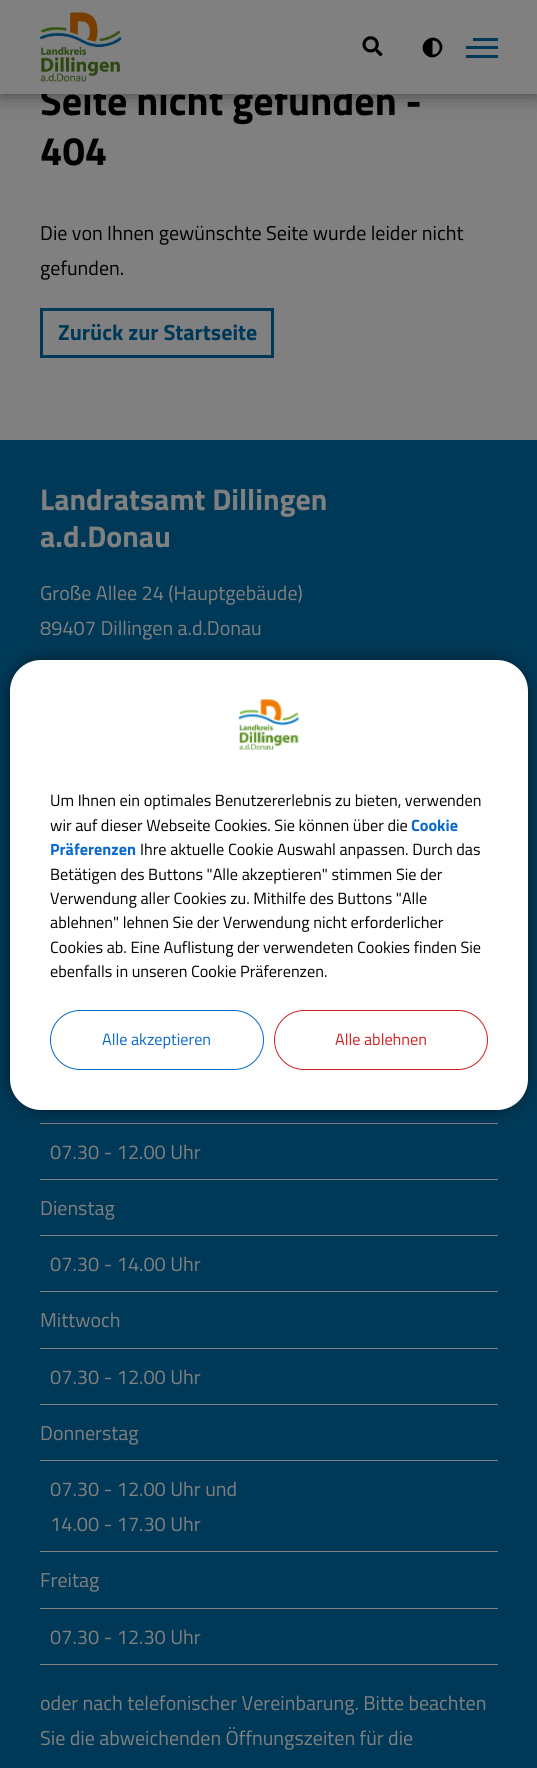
#include <cairo/cairo.h>
#include <math.h>
#include <stddef.h>

typedef struct { double x, y; const char *s; } line_t;
typedef struct { double x, y, w, h; unsigned color; } box_t;
static cairo_t *cr;

static void rgb(unsigned color)
{
	cairo_set_source_rgb(cr, (color >> 16) / 255.0, (color >> 8 & 255) / 255.0, (color & 255) / 255.0);
}

static void rrect(double x, double y, double w, double h, double r)
{
	cairo_new_sub_path(cr);
	cairo_arc(cr, x + w - r, y + h - r, r, 0, M_PI / 2);
	cairo_arc(cr, x + r, y + h - r, r, M_PI / 2, M_PI);
	cairo_arc(cr, x + r, y + r, r, M_PI, 1.5 * M_PI);
	cairo_arc(cr, x + w - r, y + r, r, 1.5 * M_PI, 2 * M_PI);
	cairo_close_path(cr);
}

static void soft_shadow(double x, double y, double w, double h, double r, double blur, double alpha)
{
	cairo_push_group_with_content(cr, CAIRO_CONTENT_ALPHA);
	cairo_set_operator(cr, CAIRO_OPERATOR_SOURCE);
	for (int i = 15; i >= -15 && fmin(w, h) + blur * i / 3 > 0; i -= 2) {
		double e = blur * i / 6;
		cairo_set_source_rgba(cr, 0, 0, 0, alpha * erfc((i - 1) / 8.5) / 2);
		rrect(x - e, y - e, w + 2 * e, h + 2 * e, fmax(0, fmin(r + e + blur * .6, fmin(w, h) / 2 + e)));
		cairo_fill(cr);
	}
	cairo_pattern_t *soft = cairo_pop_group(cr);
	cairo_mask(cr, soft);
	cairo_pattern_destroy(soft);
}

static void image(const char *path, double x, double y, double w, double h)
{
	cairo_surface_t *image = cairo_image_surface_create_from_png(path);
	cairo_save(cr);
	cairo_set_source_surface(cr, image, x, y);
	cairo_rectangle(cr, x, y, w, h);
	cairo_fill(cr);
	cairo_restore(cr);
	cairo_surface_destroy(image);
}

int main(void) {
	cairo_surface_t *surface = cairo_image_surface_create(CAIRO_FORMAT_RGB24, 537, 1768);
	cr = cairo_create(surface);
	cairo_font_options_t *options = cairo_font_options_create();
	cairo_font_options_set_hint_metrics(options, CAIRO_HINT_METRICS_OFF);
	cairo_font_options_set_hint_style(options, CAIRO_HINT_STYLE_NONE);
	cairo_set_font_options(cr, options);
	cairo_set_miter_limit(cr, 4);
	rgb(0x808080);
	cairo_paint(cr);
	rgb(0x000000);
	soft_shadow(0, 0, 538, 94, 0, 10, 0.5);
	cairo_rectangle(cr, 41.5, 309.5, 231, 47);
	rgb(0x003957);
	cairo_set_line_width(cr, 3);
	cairo_stroke(cr);
	{
		static const box_t items[] = {
			{0, 440, 537, 1328, 0x003957},
			{40, 1123, 458, 1, 0x808080},
			{40, 1179, 458, 1, 0x808080},
			{40, 1235, 458, 1, 0x808080},
			{40, 1291, 458, 1, 0x808080},
			{40, 1348, 458, 1, 0x808080},
			{40, 1404, 458, 1, 0x808080},
			{40, 1460, 458, 1, 0x808080},
			{40, 1551, 458, 1, 0x808080},
			{40, 1608, 458, 1, 0x808080},
			{40, 1664, 458, 1, 0x808080},
		};
		for (size_t i = 0; i < sizeof items / sizeof *items; i++) {
			rgb(items[i].color);
			cairo_rectangle(cr, items[i].x, items[i].y, items[i].w, items[i].h);
			cairo_fill(cr);
		}
	}
	rgb(0x000000);
	soft_shadow(16, 666, 505, 438, 25, 9.5, 1);
	rgb(0xffffff);
	rrect(10, 660, 518, 450, 31);
	cairo_fill(cr);
	image("img/3.png", 238, 699, 61, 51);
	rrect(50.5, 1010.5, 213, 59, 29.5);
	rgb(0x0a69ce);
	cairo_set_line_width(cr, 1);
	cairo_stroke(cr);
	rrect(274.5, 1010.5, 213, 59, 29.5);
	rgb(0xd52020);
	cairo_stroke(cr);
	cairo_select_font_face(cr, "Titillium Web", CAIRO_FONT_SLANT_NORMAL, CAIRO_FONT_WEIGHT_BOLD);
	cairo_set_font_size(cr, 40);
	rgb(0x000000);
	cairo_move_to(cr, 40, 115);
	cairo_show_text(cr, "Seite nicht gefunden -");
	{
		static const box_t items[] = {
			{0, 0, 537, 94, 0x808080},
			{466, 55, 32, 3, 0x003957},
			{466, 46, 32, 3, 0x003957},
			{473, 38, 25, 3, 0x003957},
		};
		for (size_t i = 0; i < sizeof items / sizeof *items; i++) {
			rgb(items[i].color);
			cairo_rectangle(cr, items[i].x, items[i].y, items[i].w, items[i].h);
			cairo_fill(cr);
		}
	}
	rgb(0x000000);
	cairo_new_path(cr);
	cairo_move_to(cr, 425.5, 54.5);
	cairo_curve_to(cr, 416.5, 45.5, 430.5, 31.5, 439.5, 40.5);
	cairo_curve_to(cr, 448.5, 49.5, 434.5, 63.5, 425.5, 54.5);
	cairo_close_path(cr);
	cairo_move_to(cr, 432.5, 54.5);
	cairo_curve_to(cr, 442, 54.5, 442, 40.5, 432.5, 40.5);
	cairo_close_path(cr);
	cairo_fill(cr);
	image("img/2.png", 362, 36, 21, 21);
	image("img/1.png", 40, 12, 82, 70);
	cairo_move_to(cr, 40, 165);
	cairo_show_text(cr, "404");
	cairo_select_font_face(cr, "Titillium Web", CAIRO_FONT_SLANT_NORMAL, CAIRO_FONT_WEIGHT_NORMAL);
	cairo_set_font_size(cr, 20);
	cairo_move_to(cr, 40, 240);
	cairo_show_text(cr, "Die von Ihnen gewünschte Seite wurde leider nicht");
	cairo_move_to(cr, 40, 275);
	cairo_show_text(cr, "gefunden.");
	cairo_select_font_face(cr, "Titillium Web", CAIRO_FONT_SLANT_NORMAL, CAIRO_FONT_WEIGHT_BOLD);
	cairo_set_font_size(cr, 22);
	rgb(0x003957);
	cairo_move_to(cr, 58, 340);
	cairo_show_text(cr, "Zurück zur Startseite");
	cairo_set_font_size(cr, 30);
	rgb(0x808080);
	cairo_move_to(cr, 40, 510);
	cairo_show_text(cr, "Landratsamt Dillingen");
	cairo_move_to(cr, 40, 547);
	cairo_show_text(cr, "a.d.Donau");
	cairo_select_font_face(cr, "Titillium Web", CAIRO_FONT_SLANT_NORMAL, CAIRO_FONT_WEIGHT_NORMAL);
	cairo_set_font_size(cr, 20);
	{
		static const line_t items[] = {
			{40, 600, "Große Allee 24 (Hauptgebäude)"},
			{40, 635, "89407 Dillingen a.d.Donau"},
			{50, 1159, "07.30 - 12.00 Uhr"},
			{40, 1215, "Dienstag"},
			{50, 1271, "07.30 - 14.00 Uhr"},
			{40, 1327, "Mittwoch"},
			{50, 1384, "07.30 - 12.00 Uhr"},
			{40, 1440, "Donnerstag"},
			{50, 1496, "07.30 - 12.00 Uhr und"},
			{50, 1531, "14.00 - 17.30 Uhr"},
			{40, 1587, "Freitag"},
			{50, 1644, "07.30 - 12.30 Uhr"},
			{40, 1710, "oder nach telefonischer Vereinbarung. Bitte beachten"},
			{40, 1745, "Sie die abweichenden Öffnungszeiten für die"},
		};
		for (size_t i = 0; i < sizeof items / sizeof *items; i++) {
			cairo_move_to(cr, items[i].x, items[i].y);
			cairo_show_text(cr, items[i].s);
		}
	}
	cairo_set_font_size(cr, 16.25);
	rgb(0x000000);
	cairo_move_to(cr, 50, 806);
	cairo_show_text(cr, "Um Ihnen ein optimales Benutzererlebnis zu bieten, verwenden");
	cairo_move_to(cr, 50, 831);
	cairo_show_text(cr, "wir auf dieser Webseite Cookies. Sie können über die");
	cairo_select_font_face(cr, "Titillium Web", CAIRO_FONT_SLANT_NORMAL, CAIRO_FONT_WEIGHT_BOLD);
	rgb(0x0a69ce);
	cairo_move_to(cr, 411, 831);
	cairo_show_text(cr, "Cookie");
	cairo_move_to(cr, 50, 855);
	cairo_show_text(cr, "Präferenzen");
	cairo_select_font_face(cr, "Titillium Web", CAIRO_FONT_SLANT_NORMAL, CAIRO_FONT_WEIGHT_NORMAL);
	rgb(0x000000);
	{
		static const line_t items[] = {
			{140, 855, "Ihre aktuelle Cookie Auswahl anpassen. Durch das"},
			{50, 880, "Betätigen des Buttons \"Alle akzeptieren\" stimmen Sie der"},
			{50, 904, "Verwendung aller Cookies zu. Mithilfe des Buttons \"Alle"},
			{50, 928, "ablehnen\" lehnen Sie der Verwendung nicht erforderlicher"},
			{50, 953, "Cookies ab. Eine Auflistung der verwendeten Cookies finden Sie"},
			{50, 977, "ebenfalls in unseren Cookie Präferenzen."},
		};
		for (size_t i = 0; i < sizeof items / sizeof *items; i++) {
			cairo_move_to(cr, items[i].x, items[i].y);
			cairo_show_text(cr, items[i].s);
		}
	}
	rgb(0x0a69ce);
	cairo_move_to(cr, 102, 1045);
	cairo_show_text(cr, "Alle akzeptieren");
	rgb(0xd52020);
	cairo_move_to(cr, 335, 1045);
	cairo_show_text(cr, "Alle ablehnen");
	cairo_surface_write_to_png(surface, "page.png");
	cairo_font_options_destroy(options);
	cairo_destroy(cr);
	cairo_surface_destroy(surface);
	return 0;
}
